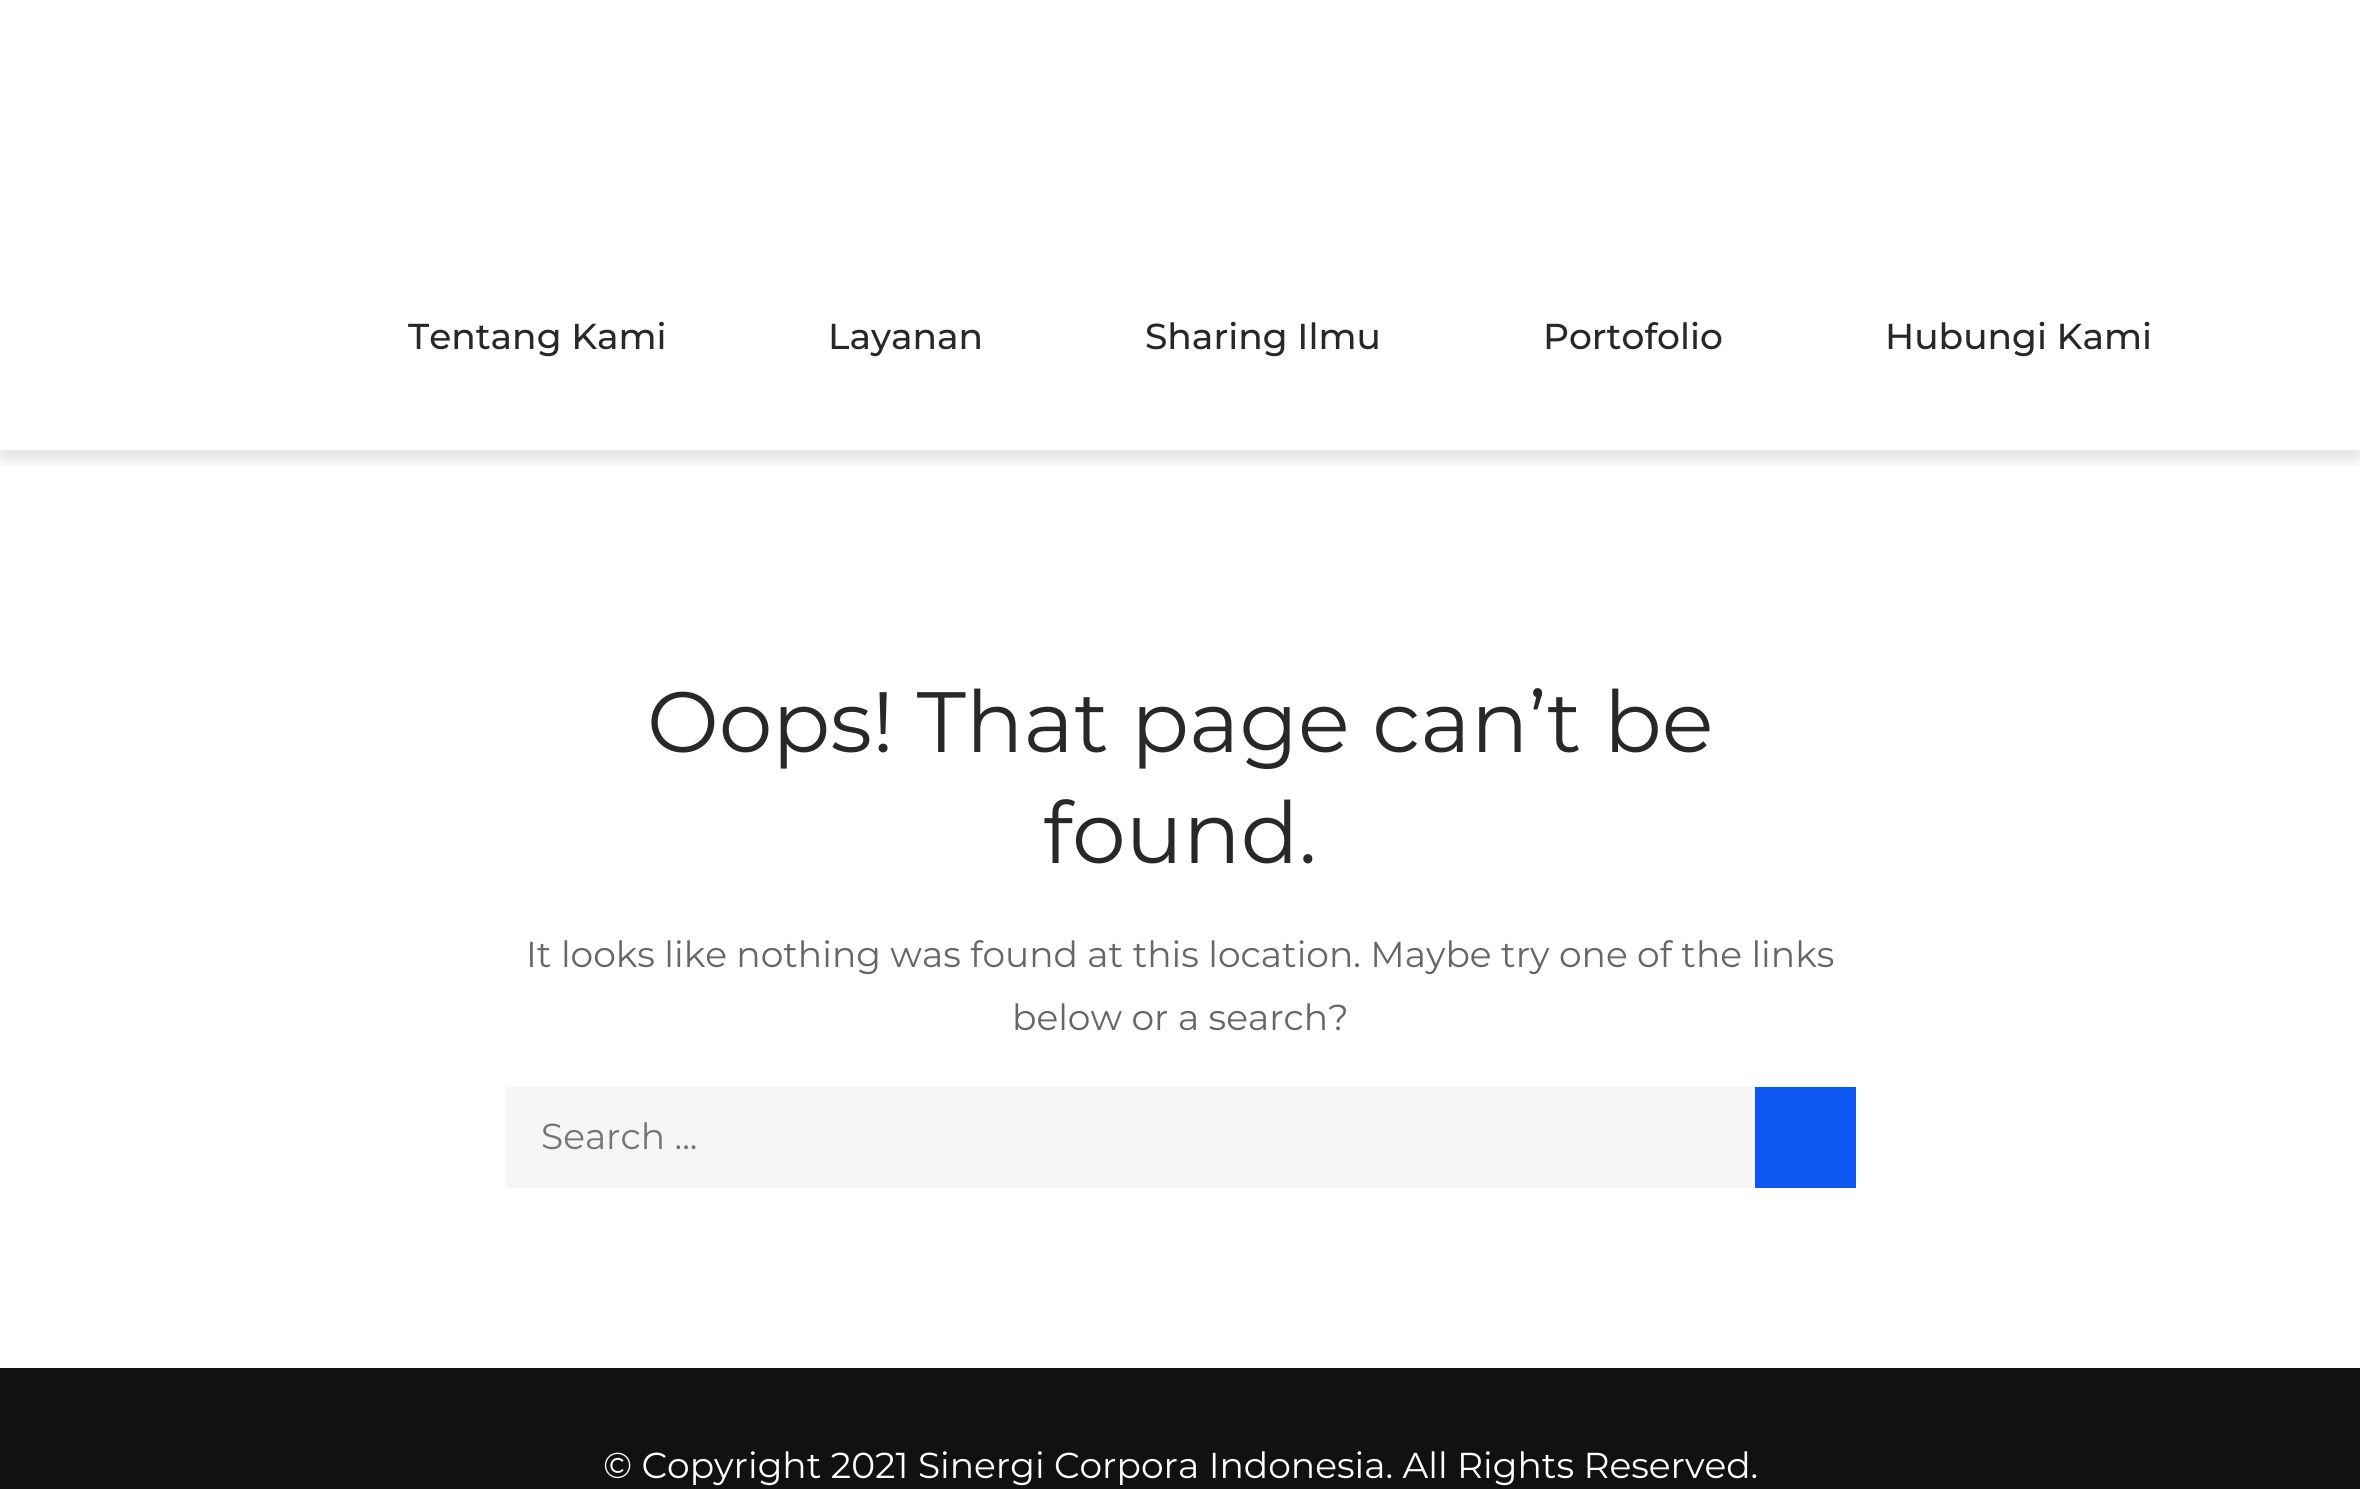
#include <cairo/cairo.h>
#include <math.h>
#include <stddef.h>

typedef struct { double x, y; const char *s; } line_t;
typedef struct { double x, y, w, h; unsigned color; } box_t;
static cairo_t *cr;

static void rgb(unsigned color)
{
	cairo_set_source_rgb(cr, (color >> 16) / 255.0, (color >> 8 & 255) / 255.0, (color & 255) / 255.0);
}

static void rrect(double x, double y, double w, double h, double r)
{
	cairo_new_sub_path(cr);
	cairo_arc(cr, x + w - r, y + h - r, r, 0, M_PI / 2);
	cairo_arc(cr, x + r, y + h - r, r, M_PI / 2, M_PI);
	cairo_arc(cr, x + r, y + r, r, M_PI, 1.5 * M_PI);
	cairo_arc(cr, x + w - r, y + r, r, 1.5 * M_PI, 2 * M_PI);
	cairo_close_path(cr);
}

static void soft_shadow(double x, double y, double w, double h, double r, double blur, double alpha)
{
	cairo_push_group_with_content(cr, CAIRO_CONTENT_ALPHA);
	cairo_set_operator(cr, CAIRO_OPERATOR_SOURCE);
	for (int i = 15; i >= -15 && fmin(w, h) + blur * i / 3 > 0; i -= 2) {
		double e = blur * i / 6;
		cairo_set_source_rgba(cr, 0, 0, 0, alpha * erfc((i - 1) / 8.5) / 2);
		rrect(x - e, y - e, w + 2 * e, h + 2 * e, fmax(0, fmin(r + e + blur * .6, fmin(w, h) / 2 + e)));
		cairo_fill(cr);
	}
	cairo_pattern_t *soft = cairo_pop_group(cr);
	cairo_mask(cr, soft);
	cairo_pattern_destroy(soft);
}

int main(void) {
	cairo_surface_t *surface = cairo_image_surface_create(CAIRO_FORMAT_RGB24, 2360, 1489);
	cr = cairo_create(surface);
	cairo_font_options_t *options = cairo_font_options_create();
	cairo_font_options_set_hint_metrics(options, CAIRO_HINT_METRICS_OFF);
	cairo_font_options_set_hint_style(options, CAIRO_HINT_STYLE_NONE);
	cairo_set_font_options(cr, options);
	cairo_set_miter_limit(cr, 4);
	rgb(0xffffff);
	cairo_paint(cr);
	cairo_save(cr);
	cairo_rectangle(cr, 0, 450, 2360, 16);
	cairo_clip(cr);
	rgb(0x000000);
	soft_shadow(0, 11, 2360, 450, 0, 5.5, 0.1);
	cairo_restore(cr);
	{
		static const box_t items[] = {
			{506, 1087, 1249, 101, 0xf6f6f6},
			{1755, 1087, 101, 101, 0x0e56f2},
			{0, 1368, 2360, 121, 0x111111},
		};
		for (size_t i = 0; i < sizeof items / sizeof *items; i++) {
			rgb(items[i].color);
			cairo_rectangle(cr, items[i].x, items[i].y, items[i].w, items[i].h);
			cairo_fill(cr);
		}
	}
	cairo_select_font_face(cr, "Montserrat Medium", CAIRO_FONT_SLANT_NORMAL, CAIRO_FONT_WEIGHT_NORMAL);
	cairo_set_font_size(cr, 36);
	rgb(0x282828);
	{
		static const line_t items[] = {
			{408, 349, "Tentang Kami"},
			{828, 349, "Layanan"},
			{1145, 349, "Sharing Ilmu"},
			{1543, 349, "Portofolio"},
			{1885, 349, "Hubungi Kami"},
		};
		for (size_t i = 0; i < sizeof items / sizeof *items; i++) {
			cairo_move_to(cr, items[i].x, items[i].y);
			cairo_show_text(cr, items[i].s);
		}
	}
	cairo_select_font_face(cr, "Montserrat", CAIRO_FONT_SLANT_NORMAL, CAIRO_FONT_WEIGHT_NORMAL);
	cairo_set_font_size(cr, 85.5);
	cairo_move_to(cr, 647, 752);
	cairo_show_text(cr, "Oops! That page can’t be");
	cairo_move_to(cr, 1043, 863);
	cairo_show_text(cr, "found.");
	cairo_set_font_size(cr, 36);
	rgb(0x666666);
	cairo_move_to(cr, 526, 967);
	cairo_show_text(cr, "It looks like nothing was found at this location. Maybe try one of the links");
	cairo_move_to(cr, 1012, 1030);
	cairo_show_text(cr, "below or a search?");
	rgb(0x757575);
	cairo_move_to(cr, 541, 1149);
	cairo_show_text(cr, "Search ...");
	rgb(0xffffff);
	cairo_move_to(cr, 603, 1478);
	cairo_show_text(cr, "© Copyright 2021 Sinergi Corpora Indonesia. All Rights Reserved.");
	cairo_surface_write_to_png(surface, "page.png");
	cairo_font_options_destroy(options);
	cairo_destroy(cr);
	cairo_surface_destroy(surface);
	return 0;
}
